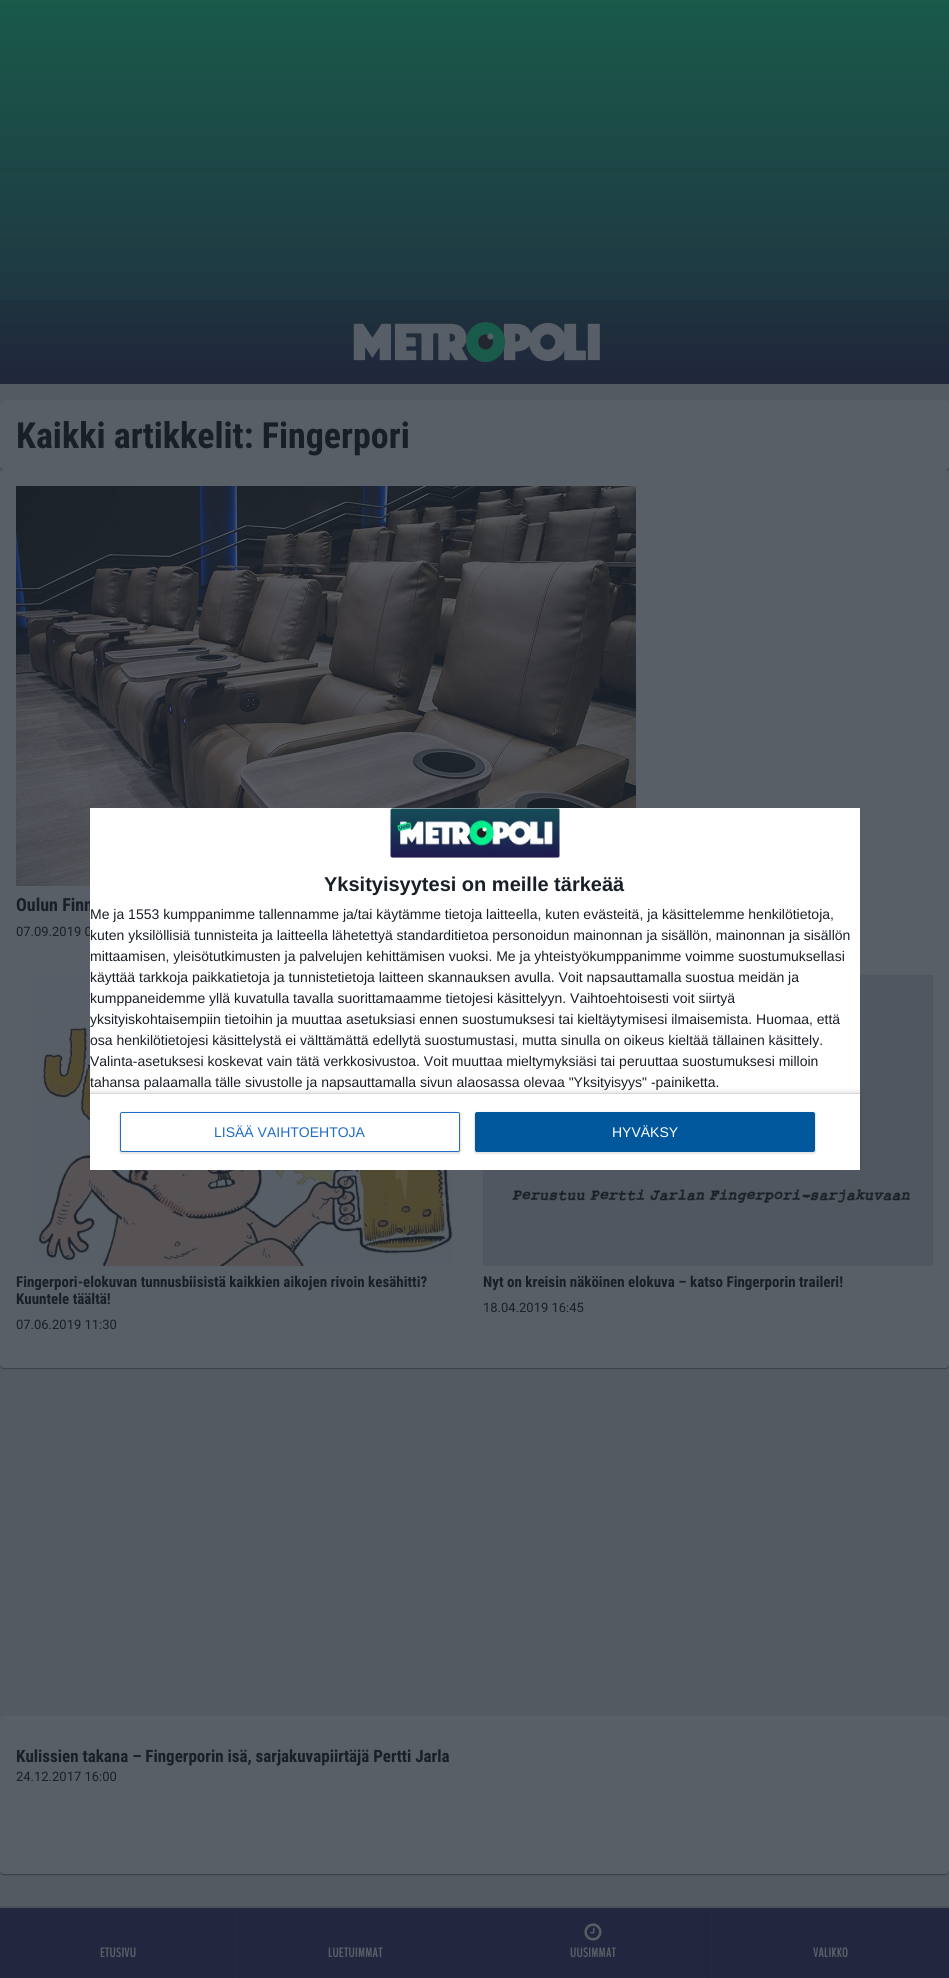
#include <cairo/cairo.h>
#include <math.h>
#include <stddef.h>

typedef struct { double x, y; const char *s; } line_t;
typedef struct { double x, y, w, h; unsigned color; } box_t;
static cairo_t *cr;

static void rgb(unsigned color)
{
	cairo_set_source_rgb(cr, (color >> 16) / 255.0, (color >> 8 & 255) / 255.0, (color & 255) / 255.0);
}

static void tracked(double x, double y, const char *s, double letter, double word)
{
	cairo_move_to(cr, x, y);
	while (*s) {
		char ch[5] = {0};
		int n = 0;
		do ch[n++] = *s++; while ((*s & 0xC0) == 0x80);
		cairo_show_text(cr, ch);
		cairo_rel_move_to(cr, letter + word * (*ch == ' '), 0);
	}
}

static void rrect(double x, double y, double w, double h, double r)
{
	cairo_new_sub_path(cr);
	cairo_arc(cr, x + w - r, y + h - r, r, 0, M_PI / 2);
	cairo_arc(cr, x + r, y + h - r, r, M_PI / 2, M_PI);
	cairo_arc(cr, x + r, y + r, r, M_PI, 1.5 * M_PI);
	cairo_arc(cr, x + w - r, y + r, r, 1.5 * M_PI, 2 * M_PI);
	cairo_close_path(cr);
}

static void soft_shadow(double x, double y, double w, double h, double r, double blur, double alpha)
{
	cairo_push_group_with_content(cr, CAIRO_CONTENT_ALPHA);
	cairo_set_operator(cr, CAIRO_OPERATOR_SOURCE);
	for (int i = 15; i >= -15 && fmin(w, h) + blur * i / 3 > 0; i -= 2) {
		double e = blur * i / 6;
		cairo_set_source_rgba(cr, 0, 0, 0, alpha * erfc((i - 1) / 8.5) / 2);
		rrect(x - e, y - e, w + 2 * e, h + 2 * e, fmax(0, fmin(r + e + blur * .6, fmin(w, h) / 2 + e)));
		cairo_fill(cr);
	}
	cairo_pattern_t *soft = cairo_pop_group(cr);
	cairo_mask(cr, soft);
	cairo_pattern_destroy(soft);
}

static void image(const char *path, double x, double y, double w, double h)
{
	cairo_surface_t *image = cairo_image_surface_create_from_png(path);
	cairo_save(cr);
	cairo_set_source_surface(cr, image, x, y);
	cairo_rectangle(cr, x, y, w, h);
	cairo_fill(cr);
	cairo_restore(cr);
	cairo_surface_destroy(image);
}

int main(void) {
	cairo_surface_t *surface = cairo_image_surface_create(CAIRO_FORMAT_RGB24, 949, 1978);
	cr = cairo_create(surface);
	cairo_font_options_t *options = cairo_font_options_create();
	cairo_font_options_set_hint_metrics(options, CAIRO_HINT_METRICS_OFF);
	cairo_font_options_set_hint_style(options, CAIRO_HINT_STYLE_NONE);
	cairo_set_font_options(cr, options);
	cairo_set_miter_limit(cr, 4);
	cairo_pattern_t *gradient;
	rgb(0x535a62);
	cairo_paint(cr);
	rgb(0x212834);
	soft_shadow(0, 401, 949, 70, 4, 0.5, 0.5);
	rgb(0x595f67);
	rrect(0, 400, 949, 70, 4);
	cairo_fill(cr);
	rgb(0x212834);
	soft_shadow(0, 471, 949, 898, 4, 0.5, 0.5);
	rgb(0x595f67);
	rrect(0, 470, 949, 898, 4);
	cairo_fill(cr);
	image("img/1.png", 16, 486, 620, 400);
	image("img/2.png", 34, 975, 419, 291);
	image("img/3.png", 483, 975, 450, 291);
	rgb(0x212834);
	soft_shadow(0, 1717, 949, 158, 4, 0.5, 0.5);
	rgb(0x595f67);
	rrect(0, 1716, 949, 158, 4);
	cairo_fill(cr);
	gradient = cairo_pattern_create_linear(475, 0, 475, 300);
	cairo_pattern_add_color_stop_rgba(gradient, 0, 0.098, 0.353, 0.29, 1);
	cairo_pattern_add_color_stop_rgba(gradient, 1, 0.122, 0.216, 0.259, 1);
	cairo_set_source(cr, gradient);
	cairo_pattern_destroy(gradient);
	cairo_rectangle(cr, 0, 0, 949, 300);
	cairo_fill(cr);
	gradient = cairo_pattern_create_linear(475, 300, 475, 384);
	cairo_pattern_add_color_stop_rgba(gradient, 0, 0.118, 0.196, 0.239, 1);
	cairo_pattern_add_color_stop_rgba(gradient, 1, 0.125, 0.149, 0.231, 1);
	cairo_set_source(cr, gradient);
	cairo_pattern_destroy(gradient);
	cairo_rectangle(cr, 0, 300, 949, 84);
	cairo_fill(cr);
	image("img/5.png", 353, 322, 247, 40);
	{
		static const box_t items[] = {
			{0, 1906, 949, 2, 0x4a5158},
			{0, 1908, 949, 70, 0x22273f},
			{236, 1908, 1, 70, 0x252a41},
			{474, 1908, 1, 70, 0x252a41},
			{711, 1908, 1, 70, 0x252a41},
		};
		for (size_t i = 0; i < sizeof items / sizeof *items; i++) {
			rgb(items[i].color);
			cairo_rectangle(cr, items[i].x, items[i].y, items[i].w, items[i].h);
			cairo_fill(cr);
		}
	}
	image("img/6.png", 584, 1923, 18, 18);
	cairo_select_font_face(cr, "Roboto Condensed", CAIRO_FONT_SLANT_NORMAL, CAIRO_FONT_WEIGHT_BOLD);
	cairo_set_font_size(cr, 36);
	rgb(0x191f27);
	cairo_move_to(cr, 16, 448);
	cairo_show_text(cr, "Kaikki artikkelit: Fingerpori");
	cairo_set_font_size(cr, 18);
	cairo_move_to(cr, 16, 911);
	cairo_show_text(cr, "Oulun Finn");
	cairo_select_font_face(cr, "Roboto", CAIRO_FONT_SLANT_NORMAL, CAIRO_FONT_WEIGHT_NORMAL);
	cairo_set_font_size(cr, 13);
	cairo_move_to(cr, 16, 936);
	cairo_show_text(cr, "07.09.2019 0");
	cairo_select_font_face(cr, "Roboto Condensed", CAIRO_FONT_SLANT_NORMAL, CAIRO_FONT_WEIGHT_BOLD);
	cairo_set_font_size(cr, 15);
	cairo_move_to(cr, 16, 1287);
	cairo_show_text(cr, "Fingerpori-elokuvan tunnusbiisistä kaikkien aikojen rivoin kesähitti?");
	cairo_move_to(cr, 16, 1304);
	cairo_show_text(cr, "Kuuntele täältä!");
	cairo_select_font_face(cr, "Roboto", CAIRO_FONT_SLANT_NORMAL, CAIRO_FONT_WEIGHT_NORMAL);
	cairo_set_font_size(cr, 13);
	cairo_move_to(cr, 16, 1329);
	cairo_show_text(cr, "07.06.2019 11:30");
	cairo_select_font_face(cr, "Roboto Condensed", CAIRO_FONT_SLANT_NORMAL, CAIRO_FONT_WEIGHT_BOLD);
	cairo_set_font_size(cr, 15);
	cairo_move_to(cr, 483, 1287);
	cairo_show_text(cr, "Nyt on kreisin näköinen elokuva – katso Fingerporin traileri!");
	cairo_select_font_face(cr, "Roboto", CAIRO_FONT_SLANT_NORMAL, CAIRO_FONT_WEIGHT_NORMAL);
	cairo_set_font_size(cr, 13);
	cairo_move_to(cr, 483, 1312);
	cairo_show_text(cr, "18.04.2019 16:45");
	cairo_select_font_face(cr, "Roboto Condensed", CAIRO_FONT_SLANT_NORMAL, CAIRO_FONT_WEIGHT_BOLD);
	cairo_set_font_size(cr, 17);
	cairo_move_to(cr, 16, 1762);
	cairo_show_text(cr, "Kulissien takana – Fingerporin isä, sarjakuvapiirtäjä Pertti Jarla");
	cairo_select_font_face(cr, "Roboto", CAIRO_FONT_SLANT_NORMAL, CAIRO_FONT_WEIGHT_NORMAL);
	cairo_set_font_size(cr, 13);
	cairo_move_to(cr, 16, 1781);
	cairo_show_text(cr, "24.12.2017 16:00");
	rgb(0xffffff);
	cairo_rectangle(cr, 90, 808, 770, 362);
	cairo_fill(cr);
	image("img/4.png", 390, 808, 170, 50);
	cairo_select_font_face(cr, "Liberation Sans", CAIRO_FONT_SLANT_NORMAL, CAIRO_FONT_WEIGHT_BOLD);
	cairo_set_font_size(cr, 20);
	rgb(0x191f27);
	cairo_move_to(cr, 324, 891);
	cairo_show_text(cr, "Yksityisyytesi on meille tärkeää");
	cairo_select_font_face(cr, "Liberation Sans", CAIRO_FONT_SLANT_NORMAL, CAIRO_FONT_WEIGHT_NORMAL);
	cairo_set_font_size(cr, 14);
	{
		static const line_t items[] = {
			{90, 919, "Me ja 1553 kumppanimme tallennamme ja/tai käytämme tietoja laitteella, kuten evästeitä, ja käsittelemme henkilötietoja,"},
			{90, 940, "kuten yksilöllisiä tunnisteita ja laitteella lähetettyä standarditietoa personoidun mainonnan ja sisällön, mainonnan ja sisällön"},
			{90, 961, "mittaamisen, yleisötutkimusten ja palvelujen kehittämisen vuoksi. Me ja yhteistyökumppanimme voimme suostumuksellasi"},
			{90, 982, "käyttää tarkkoja paikkatietoja ja tunnistetietoja laitteen skannauksen avulla. Voit napsauttamalla suostua meidän ja"},
			{90, 1003, "kumppaneidemme yllä kuvatulla tavalla suorittamaamme tietojesi käsittelyyn. Vaihtoehtoisesti voit siirtyä"},
			{90, 1024, "yksityiskohtaisempiin tietoihin ja muuttaa asetuksiasi ennen suostumuksesi tai kieltäytymisesi ilmaisemista. Huomaa, että"},
			{90, 1045, "osa henkilötietojesi käsittelystä ei välttämättä edellytä suostumustasi, mutta sinulla on oikeus kieltää tällainen käsittely."},
			{90, 1066, "Valinta-asetuksesi koskevat vain tätä verkkosivustoa. Voit muuttaa mieltymyksiäsi tai peruuttaa suostumuksesi milloin"},
			{90, 1087, "tahansa palaamalla tälle sivustolle ja napsauttamalla sivun alaosassa olevaa \"Yksityisyys\" -painiketta."},
		};
		for (size_t i = 0; i < sizeof items / sizeof *items; i++) {
			cairo_move_to(cr, items[i].x, items[i].y);
			cairo_show_text(cr, items[i].s);
		}
	}
	cairo_save(cr);
	cairo_set_fill_rule(cr, CAIRO_FILL_RULE_EVEN_ODD);
	cairo_new_path(cr);
	cairo_move_to(cr, 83, 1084);
	cairo_line_to(cr, 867, 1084);
	cairo_line_to(cr, 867, 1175);
	cairo_line_to(cr, 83, 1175);
	cairo_close_path(cr);
	cairo_move_to(cr, 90, 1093);
	cairo_line_to(cr, 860, 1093);
	cairo_line_to(cr, 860, 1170);
	cairo_line_to(cr, 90, 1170);
	cairo_close_path(cr);
	cairo_clip(cr);
	rgb(0x000000);
	soft_shadow(90, 1091, 770, 77, 0, 2, 0.1);
	cairo_restore(cr);
	rgb(0xd8d8d8);
	cairo_rectangle(cr, 90, 1093, 770, 1);
	cairo_fill(cr);
	rgb(0x000000);
	soft_shadow(119, 1112, 342, 42, 3, 0.5, 0.1);
	rgb(0xffffff);
	rrect(120.5, 1112.5, 339, 39, 1.5);
	cairo_fill_preserve(cr);
	rgb(0x206dc5);
	cairo_set_line_width(cr, 1);
	cairo_stroke(cr);
	cairo_move_to(cr, 214, 1137);
	cairo_show_text(cr, "LISÄÄ VAIHTOEHTOJA");
	rgb(0x000000);
	soft_shadow(474, 1112, 342, 42, 3, 0.5, 0.1);
	rgb(0x01579b);
	rrect(475, 1112, 340, 40, 2);
	cairo_fill(cr);
	rgb(0xffffff);
	cairo_move_to(cr, 612, 1137);
	cairo_show_text(cr, "HYVÄKSY");
	cairo_select_font_face(cr, "BenchNine", CAIRO_FONT_SLANT_NORMAL, CAIRO_FONT_WEIGHT_BOLD);
	cairo_set_font_size(cr, 13);
	rgb(0x595f67);
	{
		static const line_t items[] = {
			{100, 1957, "ETUSIVU"},
			{328, 1957, "LUETUIMMAT"},
			{570, 1957, "UUSIMMAT"},
			{813, 1957, "VALIKKO"},
		};
		for (size_t i = 0; i < sizeof items / sizeof *items; i++) {
			tracked(items[i].x, items[i].y, items[i].s, 0.5, 0);
		}
	}
	cairo_surface_write_to_png(surface, "page.png");
	cairo_font_options_destroy(options);
	cairo_destroy(cr);
	cairo_surface_destroy(surface);
	return 0;
}
